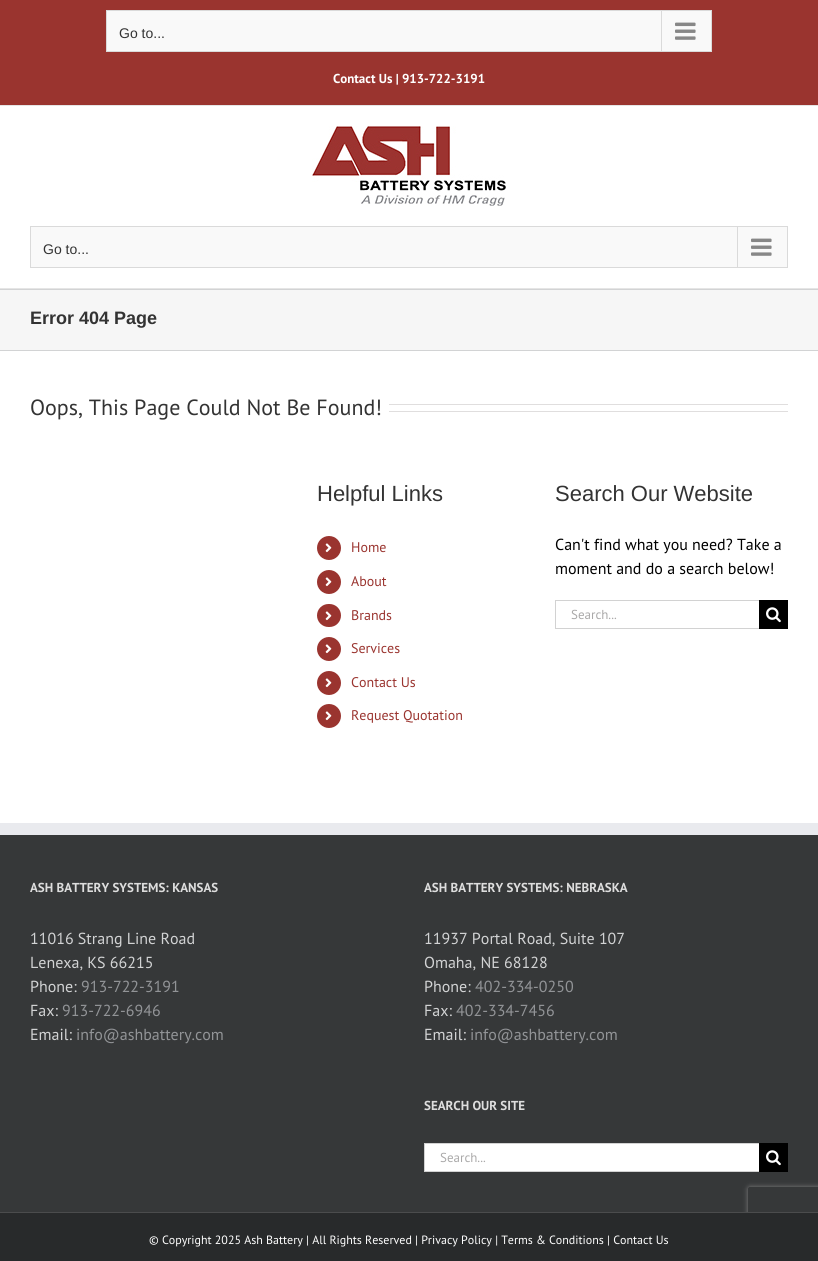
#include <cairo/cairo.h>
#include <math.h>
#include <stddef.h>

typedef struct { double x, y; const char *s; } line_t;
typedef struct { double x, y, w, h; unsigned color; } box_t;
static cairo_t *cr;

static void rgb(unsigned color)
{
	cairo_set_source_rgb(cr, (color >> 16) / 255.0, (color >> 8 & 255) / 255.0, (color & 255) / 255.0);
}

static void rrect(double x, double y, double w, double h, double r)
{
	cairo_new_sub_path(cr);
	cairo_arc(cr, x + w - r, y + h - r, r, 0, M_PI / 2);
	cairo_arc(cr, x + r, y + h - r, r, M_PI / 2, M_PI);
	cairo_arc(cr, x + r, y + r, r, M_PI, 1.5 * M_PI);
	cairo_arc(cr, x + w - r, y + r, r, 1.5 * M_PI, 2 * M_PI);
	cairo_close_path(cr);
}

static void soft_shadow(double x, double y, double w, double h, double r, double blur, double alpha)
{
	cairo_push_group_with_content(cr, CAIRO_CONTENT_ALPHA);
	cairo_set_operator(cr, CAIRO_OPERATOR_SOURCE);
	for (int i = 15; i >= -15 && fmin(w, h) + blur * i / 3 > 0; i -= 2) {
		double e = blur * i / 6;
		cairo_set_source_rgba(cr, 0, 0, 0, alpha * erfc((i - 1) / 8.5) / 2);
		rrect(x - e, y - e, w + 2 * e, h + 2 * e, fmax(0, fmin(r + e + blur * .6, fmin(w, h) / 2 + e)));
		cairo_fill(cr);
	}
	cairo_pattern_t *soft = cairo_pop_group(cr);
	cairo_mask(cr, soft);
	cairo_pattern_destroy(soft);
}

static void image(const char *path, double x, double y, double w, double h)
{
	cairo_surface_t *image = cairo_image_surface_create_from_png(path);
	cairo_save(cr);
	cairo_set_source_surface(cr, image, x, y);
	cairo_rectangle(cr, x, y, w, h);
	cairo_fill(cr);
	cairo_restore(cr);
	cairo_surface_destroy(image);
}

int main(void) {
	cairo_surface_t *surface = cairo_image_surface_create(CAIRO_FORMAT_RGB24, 818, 1261);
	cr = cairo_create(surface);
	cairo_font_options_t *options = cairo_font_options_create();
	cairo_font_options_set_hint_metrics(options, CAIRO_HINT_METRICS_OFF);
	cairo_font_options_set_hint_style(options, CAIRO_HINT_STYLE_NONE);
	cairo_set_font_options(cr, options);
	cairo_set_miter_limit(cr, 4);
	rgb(0xffffff);
	cairo_paint(cr);
	rgb(0x9a342f);
	cairo_rectangle(cr, 0, 0, 818, 105);
	cairo_fill(cr);
	rgb(0xe5e5e5);
	cairo_rectangle(cr, 0, 105, 818, 1);
	cairo_fill(cr);
	rgb(0xf9f9f9);
	cairo_rectangle(cr, 106.5, 10.5, 605, 41);
	cairo_fill_preserve(cr);
	rgb(0xdadada);
	cairo_set_line_width(cr, 1);
	cairo_stroke(cr);
	cairo_rectangle(cr, 661, 11, 1, 40);
	cairo_fill(cr);
	image("img/1.png", 675, 22, 21, 18);
	rgb(0xe5e5e5);
	cairo_rectangle(cr, 0, 288, 818, 1);
	cairo_fill(cr);
	image("img/2.png", 312, 126, 194, 80);
	rgb(0xf9f9f9);
	cairo_rectangle(cr, 30.5, 226.5, 757, 41);
	cairo_fill_preserve(cr);
	rgb(0xdadada);
	cairo_stroke(cr);
	cairo_rectangle(cr, 737, 227, 1, 40);
	cairo_fill(cr);
	image("img/1.png", 751, 238, 21, 18);
	{
		static const box_t items[] = {
			{0, 290, 818, 60, 0xf6f6f6},
			{0, 289, 818, 1, 0xd2d3d4},
			{0, 350, 818, 1, 0xd2d3d4},
			{389, 404, 399, 1, 0xe0dede},
			{389, 411, 399, 1, 0xe0dede},
		};
		for (size_t i = 0; i < sizeof items / sizeof *items; i++) {
			rgb(items[i].color);
			cairo_rectangle(cr, items[i].x, items[i].y, items[i].w, items[i].h);
			cairo_fill(cr);
		}
	}
	rgb(0x9a342f);
	cairo_arc(cr, 329, 548, 12, 0, 2 * M_PI);
	cairo_fill(cr);
	image("img/3.png", 325, 543, 7, 10);
	cairo_arc(cr, 329, 582, 12, 0, 2 * M_PI);
	cairo_fill(cr);
	image("img/3.png", 325, 577, 7, 10);
	rrect(317, 604, 24, 23, 11.5);
	cairo_fill(cr);
	image("img/3.png", 325, 611, 7, 10);
	cairo_arc(cr, 329, 649, 12, 0, 2 * M_PI);
	cairo_fill(cr);
	image("img/3.png", 325, 644, 7, 10);
	cairo_arc(cr, 329, 683, 12, 0, 2 * M_PI);
	cairo_fill(cr);
	image("img/3.png", 325, 678, 7, 10);
	cairo_arc(cr, 329, 716, 12, 0, 2 * M_PI);
	cairo_fill(cr);
	image("img/3.png", 325, 711, 7, 10);
	{
		static const box_t items[] = {
			{555, 600, 204, 1, 0xd2d2d2},
			{555, 628, 204, 1, 0xd2d2d2},
			{555, 600, 1, 29, 0xd2d2d2},
			{759, 600, 29, 29, 0x000000},
		};
		for (size_t i = 0; i < sizeof items / sizeof *items; i++) {
			rgb(items[i].color);
			cairo_rectangle(cr, items[i].x, items[i].y, items[i].w, items[i].h);
			cairo_fill(cr);
		}
	}
	image("img/4.png", 766, 607, 15, 16);
	{
		static const box_t items[] = {
			{0, 835, 818, 377, 0x363839},
			{0, 823, 818, 12, 0xe9eaee},
			{425, 1144, 334, 27, 0xffffff},
			{424, 1143, 335, 1, 0xd2d2d2},
			{424, 1171, 335, 1, 0xd2d2d2},
			{424, 1143, 1, 29, 0xd2d2d2},
			{759, 1143, 29, 29, 0x000000},
		};
		for (size_t i = 0; i < sizeof items / sizeof *items; i++) {
			rgb(items[i].color);
			cairo_rectangle(cr, items[i].x, items[i].y, items[i].w, items[i].h);
			cairo_fill(cr);
		}
	}
	image("img/4.png", 766, 1150, 15, 16);
	cairo_save(cr);
	cairo_set_fill_rule(cr, CAIRO_FILL_RULE_EVEN_ODD);
	cairo_new_path(cr);
	cairo_move_to(cr, 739, 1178);
	cairo_line_to(cr, 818, 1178);
	cairo_line_to(cr, 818, 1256);
	cairo_line_to(cr, 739, 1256);
	cairo_close_path(cr);
	cairo_move_to(cr, 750, 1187);
	cairo_line_to(cr, 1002, 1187);
	cairo_curve_to(cr, 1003, 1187, 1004, 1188, 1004, 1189);
	cairo_line_to(cr, 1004, 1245);
	cairo_curve_to(cr, 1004, 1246, 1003, 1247, 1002, 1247);
	cairo_line_to(cr, 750, 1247);
	cairo_curve_to(cr, 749, 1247, 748, 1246, 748, 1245);
	cairo_line_to(cr, 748, 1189);
	cairo_curve_to(cr, 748, 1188, 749, 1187, 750, 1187);
	cairo_close_path(cr);
	cairo_clip(cr);
	rgb(0x808080);
	soft_shadow(748, 1187, 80, 60, 2, 2.5, 1);
	cairo_restore(cr);
	rgb(0x282a2b);
	cairo_rectangle(cr, 0, 1213, 818, 48);
	cairo_fill(cr);
	rgb(0x4b4c4d);
	cairo_rectangle(cr, 0, 1212, 818, 1);
	cairo_fill(cr);
	cairo_select_font_face(cr, "Liberation Sans", CAIRO_FONT_SLANT_NORMAL, CAIRO_FONT_WEIGHT_NORMAL);
	cairo_set_font_size(cr, 14);
	rgb(0x333333);
	cairo_move_to(cr, 119, 38);
	cairo_show_text(cr, "Go to...");
	cairo_select_font_face(cr, "PT Sans", CAIRO_FONT_SLANT_NORMAL, CAIRO_FONT_WEIGHT_BOLD);
	cairo_set_font_size(cr, 13);
	rgb(0xffffff);
	cairo_move_to(cr, 333, 83);
	cairo_show_text(cr, "Contact Us | 913-722-3191");
	cairo_select_font_face(cr, "Liberation Sans", CAIRO_FONT_SLANT_NORMAL, CAIRO_FONT_WEIGHT_NORMAL);
	cairo_set_font_size(cr, 14);
	rgb(0x333333);
	cairo_move_to(cr, 43, 254);
	cairo_show_text(cr, "Go to...");
	cairo_select_font_face(cr, "Liberation Sans", CAIRO_FONT_SLANT_NORMAL, CAIRO_FONT_WEIGHT_BOLD);
	cairo_set_font_size(cr, 18);
	cairo_move_to(cr, 30, 324);
	cairo_show_text(cr, "Error 404 Page");
	cairo_select_font_face(cr, "PT Sans", CAIRO_FONT_SLANT_NORMAL, CAIRO_FONT_WEIGHT_NORMAL);
	cairo_set_font_size(cr, 22);
	cairo_move_to(cr, 30, 415);
	cairo_show_text(cr, "Oops, This Page Could Not Be Found!");
	cairo_select_font_face(cr, "Liberation Sans", CAIRO_FONT_SLANT_NORMAL, CAIRO_FONT_WEIGHT_NORMAL);
	cairo_move_to(cr, 317, 501);
	cairo_show_text(cr, "Helpful Links");
	cairo_select_font_face(cr, "PT Sans", CAIRO_FONT_SLANT_NORMAL, CAIRO_FONT_WEIGHT_NORMAL);
	cairo_set_font_size(cr, 14);
	rgb(0x9a342f);
	{
		static const line_t items[] = {
			{351, 552, "Home"},
			{351, 586, "About"},
			{351, 620, "Brands"},
			{351, 653, "Services"},
			{351, 687, "Contact Us"},
			{351, 720, "Request Quotation"},
		};
		for (size_t i = 0; i < sizeof items / sizeof *items; i++) {
			cairo_move_to(cr, items[i].x, items[i].y);
			cairo_show_text(cr, items[i].s);
		}
	}
	cairo_select_font_face(cr, "Liberation Sans", CAIRO_FONT_SLANT_NORMAL, CAIRO_FONT_WEIGHT_NORMAL);
	cairo_set_font_size(cr, 22);
	rgb(0x333333);
	cairo_move_to(cr, 555, 501);
	cairo_show_text(cr, "Search Our Website");
	cairo_select_font_face(cr, "PT Sans", CAIRO_FONT_SLANT_NORMAL, CAIRO_FONT_WEIGHT_NORMAL);
	cairo_set_font_size(cr, 16);
	rgb(0x000000);
	cairo_move_to(cr, 555, 550);
	cairo_show_text(cr, "Can't find what you need? Take a");
	cairo_move_to(cr, 555, 574);
	cairo_show_text(cr, "moment and do a search below!");
	cairo_set_font_size(cr, 13);
	rgb(0xaaa9a9);
	cairo_move_to(cr, 571, 619);
	cairo_show_text(cr, "Search...");
	cairo_select_font_face(cr, "PT Sans", CAIRO_FONT_SLANT_NORMAL, CAIRO_FONT_WEIGHT_BOLD);
	rgb(0xdddddd);
	cairo_move_to(cr, 30, 892);
	cairo_show_text(cr, "ASH BATTERY SYSTEMS: KANSAS");
	cairo_select_font_face(cr, "PT Sans", CAIRO_FONT_SLANT_NORMAL, CAIRO_FONT_WEIGHT_NORMAL);
	cairo_set_font_size(cr, 16);
	rgb(0xd2d3d4);
	{
		static const line_t items[] = {
			{30, 944, "11016 Strang Line Road"},
			{30, 968, "Lenexa, KS 66215"},
			{30, 992, "Phone:"},
		};
		for (size_t i = 0; i < sizeof items / sizeof *items; i++) {
			cairo_move_to(cr, items[i].x, items[i].y);
			cairo_show_text(cr, items[i].s);
		}
	}
	rgb(0x929497);
	cairo_move_to(cr, 81, 992);
	cairo_show_text(cr, "913-722-3191");
	rgb(0xd2d3d4);
	cairo_move_to(cr, 30, 1016);
	cairo_show_text(cr, "Fax:");
	rgb(0x929497);
	cairo_move_to(cr, 62, 1016);
	cairo_show_text(cr, "913-722-6946");
	rgb(0xd2d3d4);
	cairo_move_to(cr, 30, 1040);
	cairo_show_text(cr, "Email:");
	rgb(0x929497);
	cairo_move_to(cr, 76, 1040);
	cairo_show_text(cr, "info@ashbattery.com");
	cairo_select_font_face(cr, "PT Sans", CAIRO_FONT_SLANT_NORMAL, CAIRO_FONT_WEIGHT_BOLD);
	cairo_set_font_size(cr, 13);
	rgb(0xdddddd);
	cairo_move_to(cr, 424, 892);
	cairo_show_text(cr, "ASH BATTERY SYSTEMS: NEBRASKA");
	cairo_select_font_face(cr, "PT Sans", CAIRO_FONT_SLANT_NORMAL, CAIRO_FONT_WEIGHT_NORMAL);
	cairo_set_font_size(cr, 16);
	rgb(0xd2d3d4);
	{
		static const line_t items[] = {
			{424, 944, "11937 Portal Road, Suite 107"},
			{424, 968, "Omaha, NE 68128"},
			{424, 992, "Phone:"},
		};
		for (size_t i = 0; i < sizeof items / sizeof *items; i++) {
			cairo_move_to(cr, items[i].x, items[i].y);
			cairo_show_text(cr, items[i].s);
		}
	}
	rgb(0x929497);
	cairo_move_to(cr, 475, 992);
	cairo_show_text(cr, "402-334-0250");
	rgb(0xd2d3d4);
	cairo_move_to(cr, 424, 1016);
	cairo_show_text(cr, "Fax:");
	rgb(0x929497);
	cairo_move_to(cr, 456, 1016);
	cairo_show_text(cr, "402-334-7456");
	rgb(0xd2d3d4);
	cairo_move_to(cr, 424, 1040);
	cairo_show_text(cr, "Email:");
	rgb(0x929497);
	cairo_move_to(cr, 470, 1040);
	cairo_show_text(cr, "info@ashbattery.com");
	cairo_select_font_face(cr, "PT Sans", CAIRO_FONT_SLANT_NORMAL, CAIRO_FONT_WEIGHT_BOLD);
	cairo_set_font_size(cr, 13);
	rgb(0xdddddd);
	cairo_move_to(cr, 424, 1110);
	cairo_show_text(cr, "SEARCH OUR SITE");
	cairo_select_font_face(cr, "PT Sans", CAIRO_FONT_SLANT_NORMAL, CAIRO_FONT_WEIGHT_NORMAL);
	rgb(0xaaa9a9);
	cairo_move_to(cr, 440, 1162);
	cairo_show_text(cr, "Search...");
	cairo_set_font_size(cr, 12);
	rgb(0xffffff);
	cairo_move_to(cr, 149, 1244);
	cairo_show_text(cr, "© Copyright 2025 Ash Battery | All Rights Reserved | Privacy Policy | Terms & Conditions | Contact Us");
	cairo_surface_write_to_png(surface, "page.png");
	cairo_font_options_destroy(options);
	cairo_destroy(cr);
	cairo_surface_destroy(surface);
	return 0;
}
